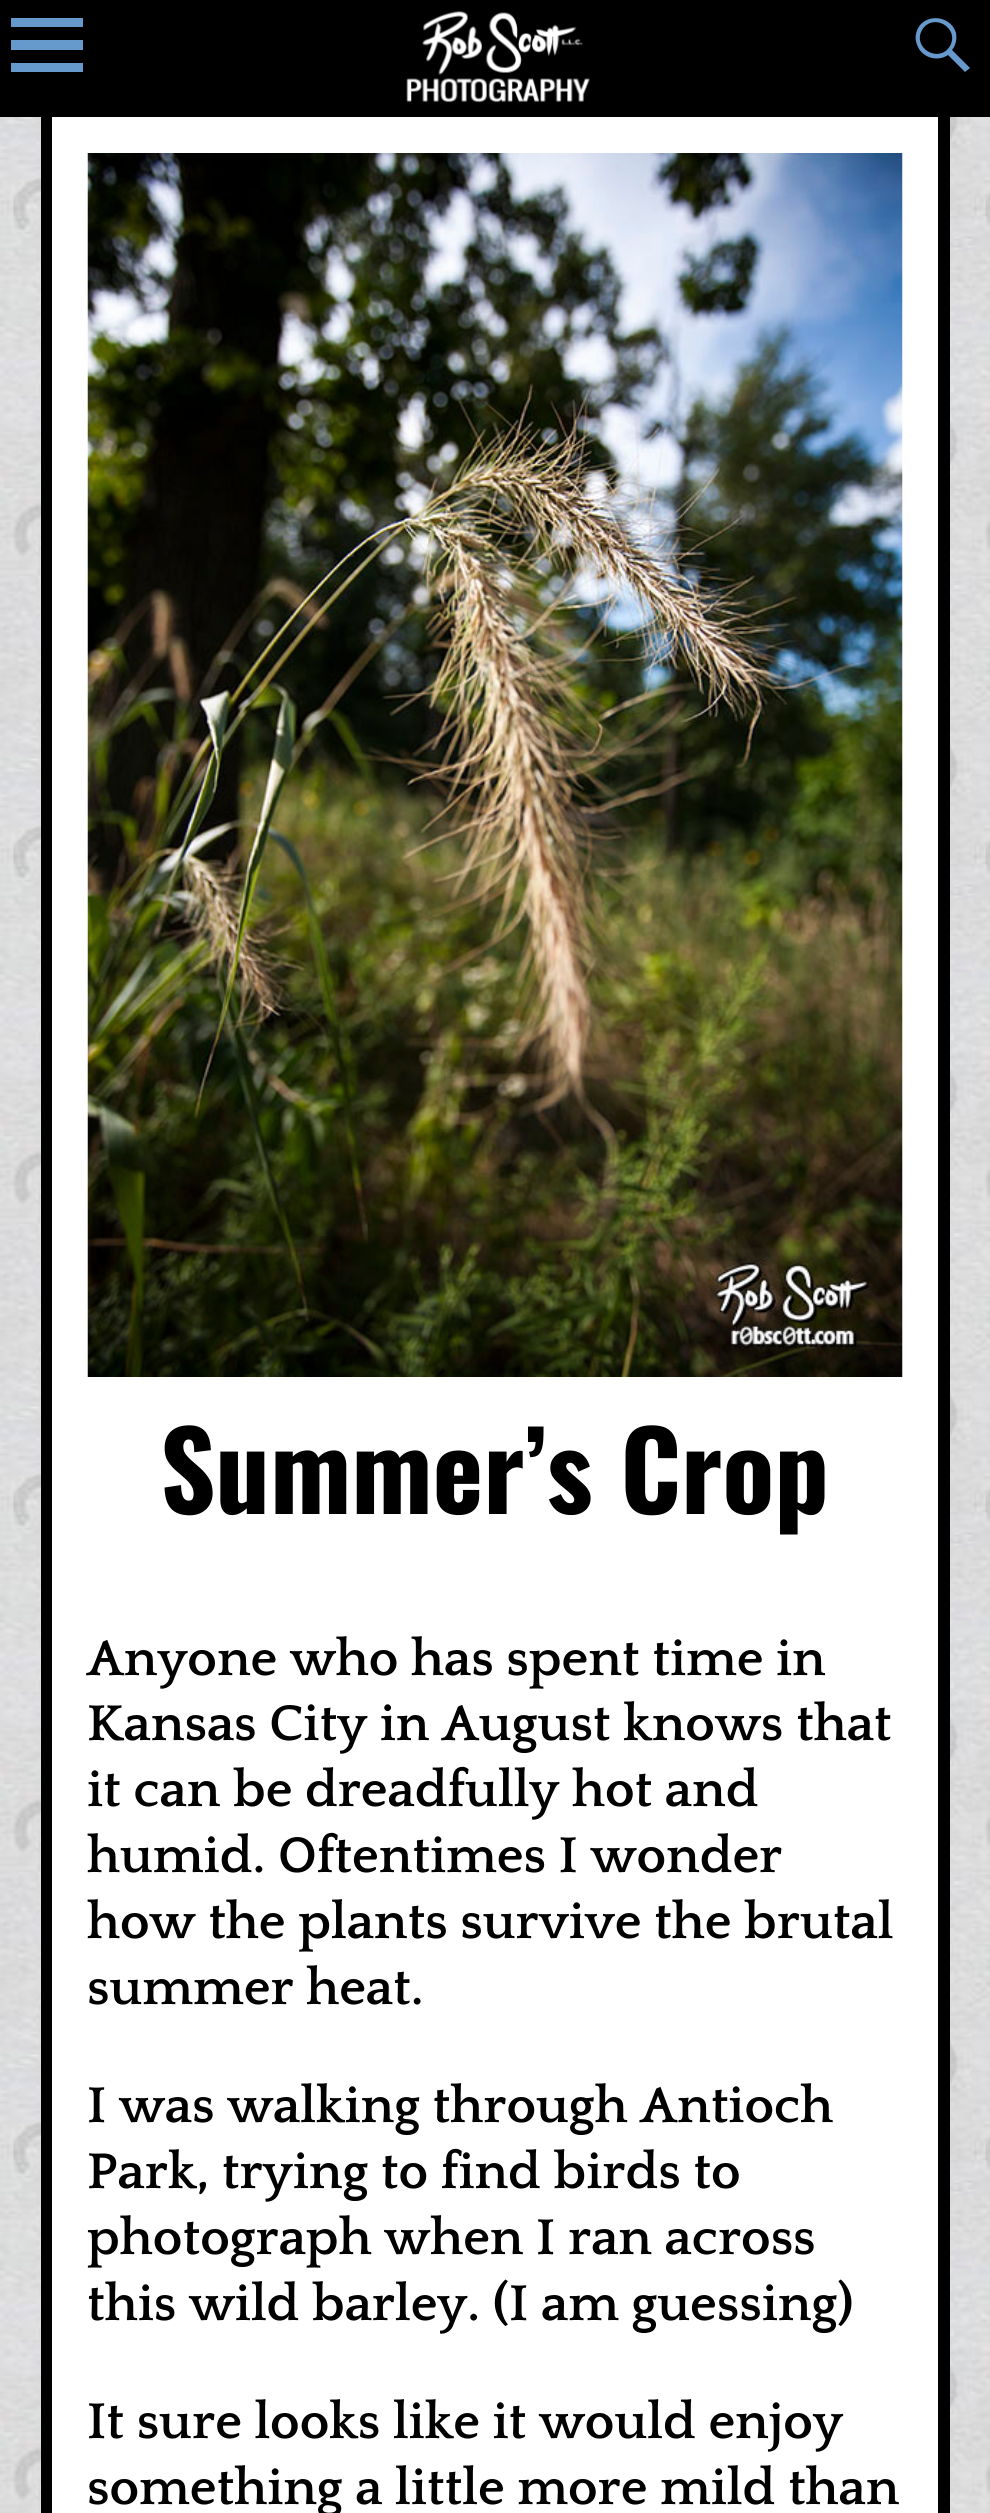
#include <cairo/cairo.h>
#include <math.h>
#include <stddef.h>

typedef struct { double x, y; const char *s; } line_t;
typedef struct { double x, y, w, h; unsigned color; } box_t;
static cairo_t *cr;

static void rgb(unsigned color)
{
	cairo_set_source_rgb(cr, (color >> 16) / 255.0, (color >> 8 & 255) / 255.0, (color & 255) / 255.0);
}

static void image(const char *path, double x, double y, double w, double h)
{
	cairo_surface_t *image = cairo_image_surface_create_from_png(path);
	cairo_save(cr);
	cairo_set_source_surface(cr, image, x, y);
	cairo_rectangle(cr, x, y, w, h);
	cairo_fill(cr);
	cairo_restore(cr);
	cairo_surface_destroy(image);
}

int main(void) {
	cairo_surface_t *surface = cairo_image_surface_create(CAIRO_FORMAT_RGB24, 990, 2513);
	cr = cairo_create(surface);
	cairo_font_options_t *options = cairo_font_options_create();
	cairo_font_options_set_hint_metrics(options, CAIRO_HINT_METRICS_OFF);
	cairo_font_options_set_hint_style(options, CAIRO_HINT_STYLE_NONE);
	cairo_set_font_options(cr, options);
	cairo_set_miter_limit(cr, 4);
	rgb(0xffffff);
	cairo_paint(cr);
	image("img/1.png", 0, 117, 990, 2396);
	rgb(0x000000);
	cairo_rectangle(cr, 0, 0, 990, 117);
	cairo_fill(cr);
	rgb(0x6699cc);
	cairo_new_path(cr);
	cairo_move_to(cr, 11, 72);
	cairo_line_to(cr, 11, 63);
	cairo_line_to(cr, 83, 63);
	cairo_line_to(cr, 83, 72);
	cairo_close_path(cr);
	cairo_move_to(cr, 11, 18);
	cairo_line_to(cr, 83, 18);
	cairo_line_to(cr, 83, 27);
	cairo_line_to(cr, 11, 27);
	cairo_close_path(cr);
	cairo_move_to(cr, 11, 50);
	cairo_line_to(cr, 11, 40);
	cairo_line_to(cr, 83, 40);
	cairo_line_to(cr, 83, 50);
	cairo_close_path(cr);
	cairo_fill(cr);
	image("img/2.png", 406, 11, 184, 92);
	cairo_new_path(cr);
	cairo_move_to(cr, 970, 68);
	cairo_line_to(cr, 965, 72);
	cairo_line_to(cr, 948, 55);
	cairo_curve_to(cr, 938, 62, 923, 58, 918, 47);
	cairo_curve_to(cr, 916, 43, 915, 39, 916, 34);
	cairo_curve_to(cr, 920, 13, 950, 13, 956, 33);
	cairo_curve_to(cr, 957, 39, 956, 45, 952, 50);
	cairo_close_path(cr);
	cairo_move_to(cr, 922, 30);
	cairo_curve_to(cr, 912, 48, 939, 64, 950, 46);
	cairo_curve_to(cr, 960, 28, 933, 12, 922, 30);
	cairo_close_path(cr);
	cairo_fill(cr);
	{
		static const box_t items[] = {
			{52, 117, 886, 2396, 0xffffff},
			{938, 117, 12, 2396, 0x000000},
			{41, 117, 11, 2396, 0x000000},
		};
		for (size_t i = 0; i < sizeof items / sizeof *items; i++) {
			rgb(items[i].color);
			cairo_rectangle(cr, items[i].x, items[i].y, items[i].w, items[i].h);
			cairo_fill(cr);
		}
	}
	image("img/3.png", 87, 153, 816, 1224);
	cairo_select_font_face(cr, "Oswald", CAIRO_FONT_SLANT_NORMAL, CAIRO_FONT_WEIGHT_BOLD);
	cairo_set_font_size(cr, 108);
	cairo_move_to(cr, 160, 1514);
	cairo_show_text(cr, "Summer’s Crop");
	cairo_select_font_face(cr, "Quattrocento", CAIRO_FONT_SLANT_NORMAL, CAIRO_FONT_WEIGHT_BOLD);
	cairo_set_font_size(cr, 52.6);
	{
		static const line_t items[] = {
			{87, 1675, "Anyone who has spent time in"},
			{87, 1740, "Kansas City in August knows that"},
			{87, 1806, "it can be dreadfully hot and"},
			{87, 1872, "humid. Oftentimes I wonder"},
			{87, 1938, "how the plants survive the brutal"},
			{87, 2004, "summer heat."},
			{87, 2122, "I was walking through Antioch"},
			{87, 2188, "Park, trying to find birds to"},
			{87, 2254, "photograph when I ran across"},
			{87, 2320, "this wild barley. (I am guessing)"},
			{87, 2438, "It sure looks like it would enjoy"},
			{87, 2504, "something a little more mild than"},
		};
		for (size_t i = 0; i < sizeof items / sizeof *items; i++) {
			cairo_move_to(cr, items[i].x, items[i].y);
			cairo_show_text(cr, items[i].s);
		}
	}
	cairo_surface_write_to_png(surface, "page.png");
	cairo_font_options_destroy(options);
	cairo_destroy(cr);
	cairo_surface_destroy(surface);
	return 0;
}
